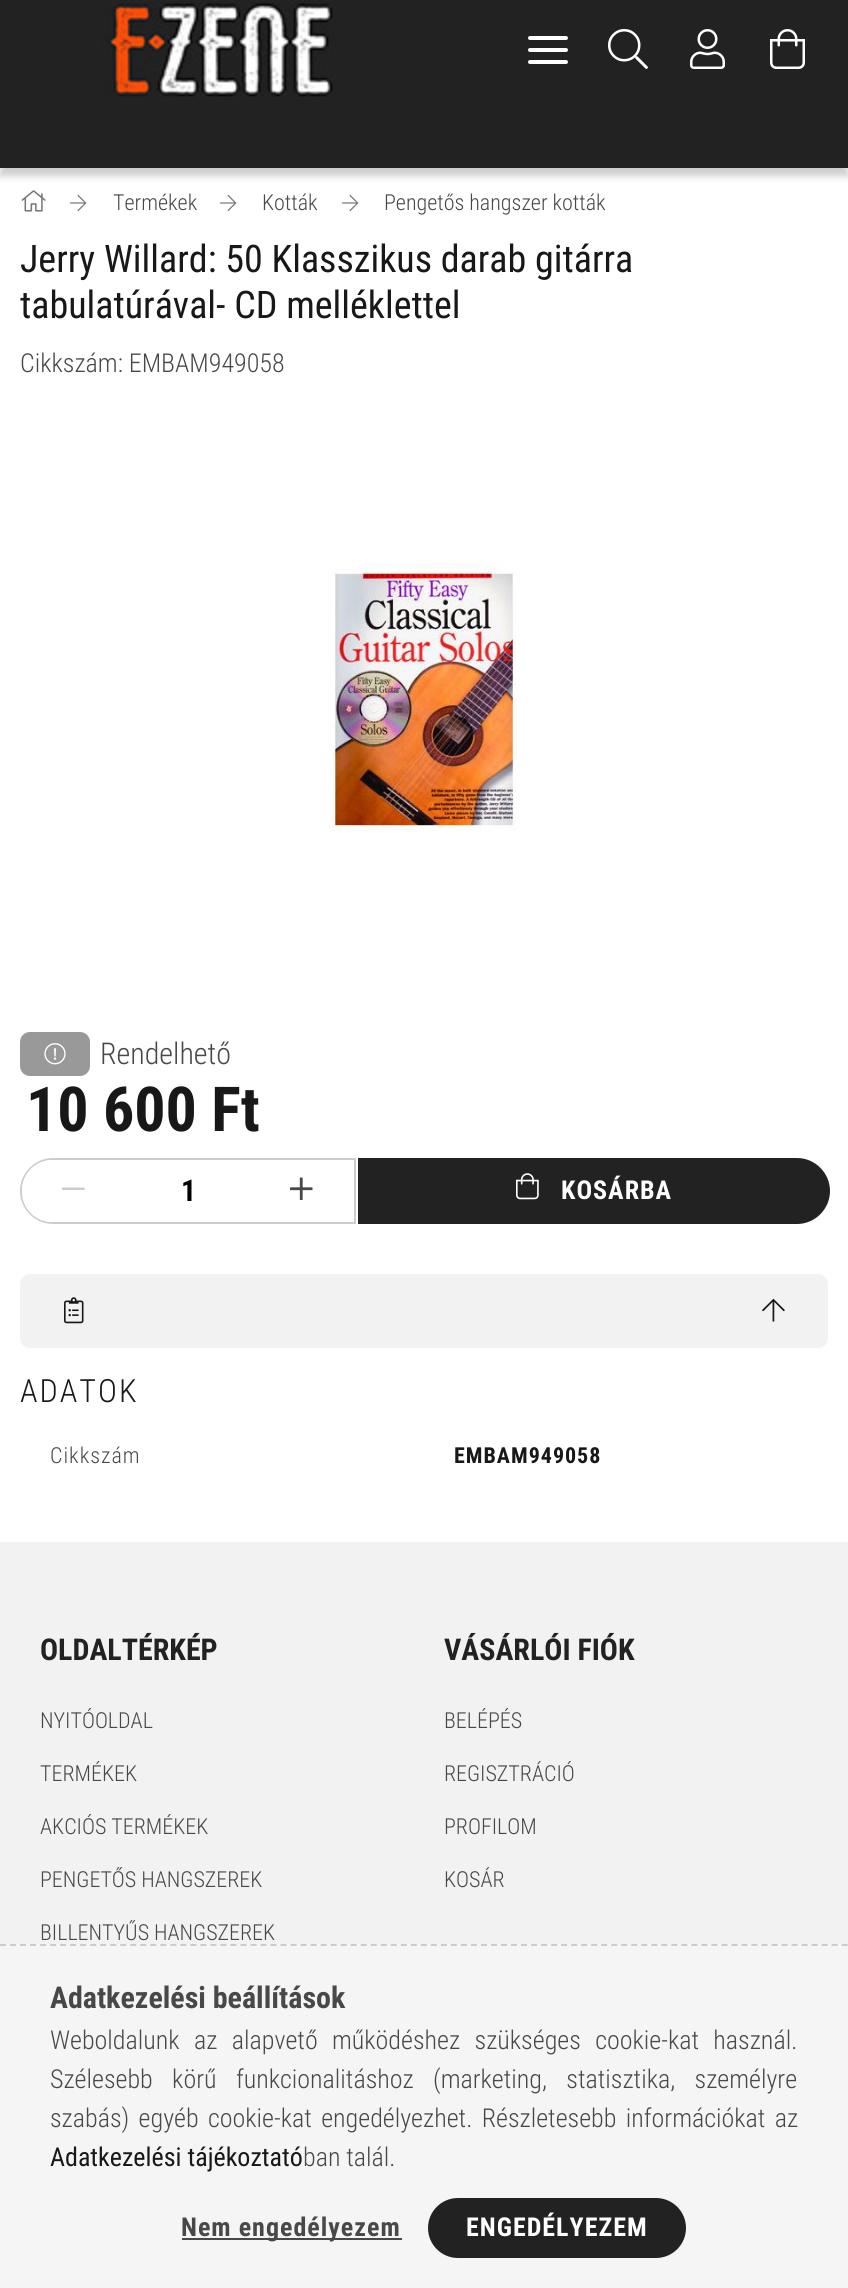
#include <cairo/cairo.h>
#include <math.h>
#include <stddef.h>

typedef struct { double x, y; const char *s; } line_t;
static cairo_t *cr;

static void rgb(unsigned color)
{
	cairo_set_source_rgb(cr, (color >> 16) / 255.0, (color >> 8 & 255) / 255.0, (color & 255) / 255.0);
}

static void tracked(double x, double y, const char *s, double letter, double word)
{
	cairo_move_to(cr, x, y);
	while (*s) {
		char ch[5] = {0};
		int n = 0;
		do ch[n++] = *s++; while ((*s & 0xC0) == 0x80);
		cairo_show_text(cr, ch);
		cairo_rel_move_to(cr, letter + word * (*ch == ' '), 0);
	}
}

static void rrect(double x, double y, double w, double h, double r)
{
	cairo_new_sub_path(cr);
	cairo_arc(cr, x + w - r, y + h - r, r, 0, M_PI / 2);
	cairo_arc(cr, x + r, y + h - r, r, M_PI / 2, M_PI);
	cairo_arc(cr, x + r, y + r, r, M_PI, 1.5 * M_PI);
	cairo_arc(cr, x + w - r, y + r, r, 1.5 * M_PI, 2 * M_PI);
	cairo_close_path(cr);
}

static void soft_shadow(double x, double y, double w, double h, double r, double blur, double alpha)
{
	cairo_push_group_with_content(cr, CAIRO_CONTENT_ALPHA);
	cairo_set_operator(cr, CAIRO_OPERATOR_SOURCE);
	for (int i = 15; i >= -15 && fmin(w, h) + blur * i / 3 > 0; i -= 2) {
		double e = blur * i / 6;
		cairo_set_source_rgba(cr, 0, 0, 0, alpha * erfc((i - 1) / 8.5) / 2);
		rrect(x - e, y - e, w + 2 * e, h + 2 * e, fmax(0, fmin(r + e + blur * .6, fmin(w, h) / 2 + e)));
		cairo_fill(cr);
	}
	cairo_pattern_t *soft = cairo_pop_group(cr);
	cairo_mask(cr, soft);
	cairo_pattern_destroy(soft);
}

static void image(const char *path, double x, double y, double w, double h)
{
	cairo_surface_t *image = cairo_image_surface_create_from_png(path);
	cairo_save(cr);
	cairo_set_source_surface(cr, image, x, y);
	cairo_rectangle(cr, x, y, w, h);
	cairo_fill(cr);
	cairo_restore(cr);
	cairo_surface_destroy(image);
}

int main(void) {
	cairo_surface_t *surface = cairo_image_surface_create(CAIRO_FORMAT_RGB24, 848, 2288);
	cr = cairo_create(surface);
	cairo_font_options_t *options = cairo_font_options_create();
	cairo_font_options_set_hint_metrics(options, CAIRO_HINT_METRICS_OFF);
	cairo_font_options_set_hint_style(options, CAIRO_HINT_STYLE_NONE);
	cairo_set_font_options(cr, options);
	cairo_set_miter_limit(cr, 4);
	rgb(0xffffff);
	cairo_paint(cr);
	rgb(0x000000);
	soft_shadow(0, 8, 848, 168, 0, 4, 0.2);
	rgb(0x222222);
	cairo_rectangle(cr, 0, 0, 848, 168);
	cairo_fill(cr);
	image("img/1.png", 100, 0, 233, 97);
	rgb(0xffffff);
	rrect(528, 36, 40, 4, 2);
	cairo_fill(cr);
	rrect(528, 48, 40, 4, 2);
	cairo_fill(cr);
	rrect(528, 60, 40, 4, 2);
	cairo_fill(cr);
	image("img/2.png", 608, 29, 40, 40);
	image("img/3.png", 690, 29, 35, 40);
	image("img/4.png", 770, 29, 35, 40);
	image("img/5.png", 21, 190, 25, 22);
	image("img/6.png", 70, 194, 17, 18);
	image("img/6.png", 220, 194, 17, 18);
	image("img/6.png", 342, 194, 17, 18);
	image("img/7.png", 331, 561, 186, 270);
	rgb(0x999999);
	rrect(21, 1033, 68, 42, 9);
	cairo_fill_preserve(cr);
	cairo_stroke(cr);
	image("img/8.png", 44, 1043, 22, 22);
	cairo_new_path(cr);
	cairo_move_to(cr, 53, 1159);
	cairo_line_to(cr, 355, 1159);
	cairo_line_to(cr, 355, 1223);
	cairo_line_to(cr, 53, 1223);
	cairo_curve_to(cr, 35.5, 1223, 21, 1208.5, 21, 1191);
	cairo_curve_to(cr, 21, 1173.5, 35.5, 1159, 53, 1159);
	cairo_close_path(cr);
	rgb(0xcccccc);
	cairo_stroke(cr);
	rgb(0xffffff);
	cairo_new_path(cr);
	cairo_move_to(cr, 52, 1160);
	cairo_line_to(cr, 126, 1160);
	cairo_line_to(cr, 126, 1222);
	cairo_line_to(cr, 52, 1222);
	cairo_curve_to(cr, 35.5, 1222, 22, 1208.5, 22, 1192);
	cairo_line_to(cr, 22, 1190);
	cairo_curve_to(cr, 22, 1173.5, 35.5, 1160, 52, 1160);
	cairo_close_path(cr);
	cairo_fill(cr);
	rgb(0xcccccc);
	cairo_new_path(cr);
	cairo_move_to(cr, 84, 1187.5);
	cairo_curve_to(cr, 85, 1187.5, 85, 1190, 84, 1190);
	cairo_line_to(cr, 62, 1190);
	cairo_line_to(cr, 62, 1188);
	cairo_line_to(cr, 62, 1187.5);
	cairo_close_path(cr);
	cairo_fill(cr);
	image("img/9.png", 290, 1177, 23, 23);
	rgb(0x222222);
	cairo_new_path(cr);
	cairo_move_to(cr, 359, 1159);
	cairo_line_to(cr, 797, 1159);
	cairo_curve_to(cr, 814.5, 1159, 829, 1173.5, 829, 1191);
	cairo_curve_to(cr, 829, 1208.5, 814.5, 1223, 797, 1223);
	cairo_line_to(cr, 359, 1223);
	cairo_close_path(cr);
	cairo_fill_preserve(cr);
	cairo_stroke(cr);
	image("img/10.png", 516, 1173, 23, 27);
	rgb(0xf2f2f2);
	rrect(20, 1274, 808, 74, 10);
	cairo_fill(cr);
	image("img/11.png", 64, 1297, 20, 27);
	image("img/12.png", 762, 1298, 23, 24);
	cairo_rectangle(cr, 0, 1542, 848, 402);
	cairo_fill(cr);
	rgb(0xf5f5f5);
	cairo_rectangle(cr, 0, 1944, 848, 344);
	cairo_fill(cr);
	cairo_new_path(cr);
	cairo_move_to(cr, 0, 1945);
	cairo_line_to(cr, 848, 1945);
	rgb(0xcccccc);
	cairo_set_dash(cr, (double[]){6, 4.02}, 2, 0);
	cairo_stroke(cr);
	rgb(0x484848);
	cairo_rectangle(cr, 182, 2238, 220, 2);
	cairo_fill(cr);
	rgb(0x222222);
	rrect(429, 2199, 256, 58, 29);
	cairo_fill_preserve(cr);
	cairo_set_dash(cr, NULL, 0, 0);
	cairo_stroke(cr);
	cairo_select_font_face(cr, "Roboto Condensed Light", CAIRO_FONT_SLANT_NORMAL, CAIRO_FONT_WEIGHT_NORMAL);
	cairo_set_font_size(cr, 22);
	rgb(0x484848);
	{
		static const line_t items[] = {
			{113, 210, "Termékek"},
			{262, 210, "Kották"},
			{384, 210, "Pengetős hangszer kották"},
		};
		for (size_t i = 0; i < sizeof items / sizeof *items; i++) {
			cairo_move_to(cr, items[i].x, items[i].y);
			cairo_show_text(cr, items[i].s);
		}
	}
	cairo_select_font_face(cr, "Roboto Condensed", CAIRO_FONT_SLANT_NORMAL, CAIRO_FONT_WEIGHT_NORMAL);
	cairo_set_font_size(cr, 38);
	rgb(0x181818);
	cairo_move_to(cr, 20, 272);
	cairo_show_text(cr, "Jerry Willard: 50 Klasszikus darab gitárra");
	cairo_move_to(cr, 20, 318);
	cairo_show_text(cr, "tabulatúrával- CD melléklettel");
	cairo_select_font_face(cr, "Roboto Condensed Light", CAIRO_FONT_SLANT_NORMAL, CAIRO_FONT_WEIGHT_NORMAL);
	cairo_set_font_size(cr, 26);
	rgb(0x484848);
	cairo_move_to(cr, 20, 372);
	cairo_show_text(cr, "Cikkszám: EMBAM949058");
	cairo_set_font_size(cr, 30);
	cairo_move_to(cr, 100, 1064);
	cairo_show_text(cr, "Rendelhető");
	cairo_select_font_face(cr, "Roboto Condensed", CAIRO_FONT_SLANT_NORMAL, CAIRO_FONT_WEIGHT_BOLD);
	cairo_set_font_size(cr, 62);
	rgb(0x181818);
	cairo_move_to(cr, 26, 1131);
	cairo_show_text(cr, "10 600 Ft");
	cairo_set_font_size(cr, 30);
	rgb(0x000000);
	cairo_move_to(cr, 181, 1201);
	cairo_show_text(cr, "1");
	cairo_set_font_size(cr, 26);
	rgb(0xffffff);
	tracked(561, 1199, "KOSÁRBA", 1, 0);
	cairo_select_font_face(cr, "Roboto Condensed Light", CAIRO_FONT_SLANT_NORMAL, CAIRO_FONT_WEIGHT_NORMAL);
	cairo_set_font_size(cr, 32);
	rgb(0x181818);
	tracked(20, 1402, "ADATOK", 2, 0);
	cairo_set_font_size(cr, 22);
	rgb(0x484848);
	tracked(50, 1463, "Cikkszám", 1, 0);
	cairo_select_font_face(cr, "Roboto Condensed", CAIRO_FONT_SLANT_NORMAL, CAIRO_FONT_WEIGHT_BOLD);
	rgb(0x181818);
	tracked(454, 1463, "EMBAM949058", 1, 0);
	cairo_set_font_size(cr, 30);
	rgb(0x222222);
	cairo_move_to(cr, 40, 1660);
	cairo_show_text(cr, "OLDALTÉRKÉP");
	cairo_select_font_face(cr, "Roboto Condensed Light", CAIRO_FONT_SLANT_NORMAL, CAIRO_FONT_WEIGHT_NORMAL);
	cairo_set_font_size(cr, 22);
	rgb(0x484848);
	{
		static const line_t items[] = {
			{40, 1728, "NYITÓOLDAL"},
			{40, 1781, "TERMÉKEK"},
			{40, 1834, "AKCIÓS TERMÉKEK"},
			{40, 1887, "PENGETŐS HANGSZEREK"},
			{40, 1940, "BILLENTYŰS HANGSZEREK"},
		};
		for (size_t i = 0; i < sizeof items / sizeof *items; i++) {
			cairo_move_to(cr, items[i].x, items[i].y);
			cairo_show_text(cr, items[i].s);
		}
	}
	cairo_select_font_face(cr, "Roboto Condensed", CAIRO_FONT_SLANT_NORMAL, CAIRO_FONT_WEIGHT_BOLD);
	cairo_set_font_size(cr, 30);
	rgb(0x222222);
	cairo_move_to(cr, 444, 1660);
	cairo_show_text(cr, "VÁSÁRLÓI FIÓK");
	cairo_select_font_face(cr, "Roboto Condensed Light", CAIRO_FONT_SLANT_NORMAL, CAIRO_FONT_WEIGHT_NORMAL);
	cairo_set_font_size(cr, 22);
	rgb(0x484848);
	{
		static const line_t items[] = {
			{444, 1728, "BELÉPÉS"},
			{444, 1781, "REGISZTRÁCIÓ"},
			{444, 1834, "PROFILOM"},
			{444, 1887, "KOSÁR"},
		};
		for (size_t i = 0; i < sizeof items / sizeof *items; i++) {
			cairo_move_to(cr, items[i].x, items[i].y);
			cairo_show_text(cr, items[i].s);
		}
	}
	cairo_select_font_face(cr, "Roboto Condensed", CAIRO_FONT_SLANT_NORMAL, CAIRO_FONT_WEIGHT_BOLD);
	cairo_set_font_size(cr, 30);
	cairo_move_to(cr, 50, 2008);
	cairo_show_text(cr, "Adatkezelési beállítások");
	cairo_select_font_face(cr, "Roboto Condensed Light", CAIRO_FONT_SLANT_NORMAL, CAIRO_FONT_WEIGHT_NORMAL);
	cairo_set_font_size(cr, 26);
	tracked(50, 2049, "Weboldalunk az alapvető működéshez szükséges cookie-kat használ.", 0, 8.5);
	tracked(50, 2088, "Szélesebb körű funkcionalitáshoz (marketing, statisztika, személyre", 0, 13.5);
	tracked(50, 2127, "szabás) egyéb cookie-kat engedélyezhet. Részletesebb információkat az", 0, 3.5);
	cairo_select_font_face(cr, "Roboto Condensed", CAIRO_FONT_SLANT_NORMAL, CAIRO_FONT_WEIGHT_NORMAL);
	rgb(0x181818);
	cairo_move_to(cr, 50, 2166);
	cairo_show_text(cr, "Adatkezelési tájékoztató");
	cairo_select_font_face(cr, "Roboto Condensed Light", CAIRO_FONT_SLANT_NORMAL, CAIRO_FONT_WEIGHT_NORMAL);
	rgb(0x484848);
	cairo_move_to(cr, 303, 2166);
	cairo_show_text(cr, "ban talál.");
	cairo_select_font_face(cr, "Roboto Condensed", CAIRO_FONT_SLANT_NORMAL, CAIRO_FONT_WEIGHT_BOLD);
	tracked(181, 2236, "Nem engedélyezem", 1, 0);
	rgb(0xffffff);
	tracked(466, 2236, "ENGEDÉLYEZEM", 1, 0);
	cairo_surface_write_to_png(surface, "page.png");
	cairo_font_options_destroy(options);
	cairo_destroy(cr);
	cairo_surface_destroy(surface);
	return 0;
}
